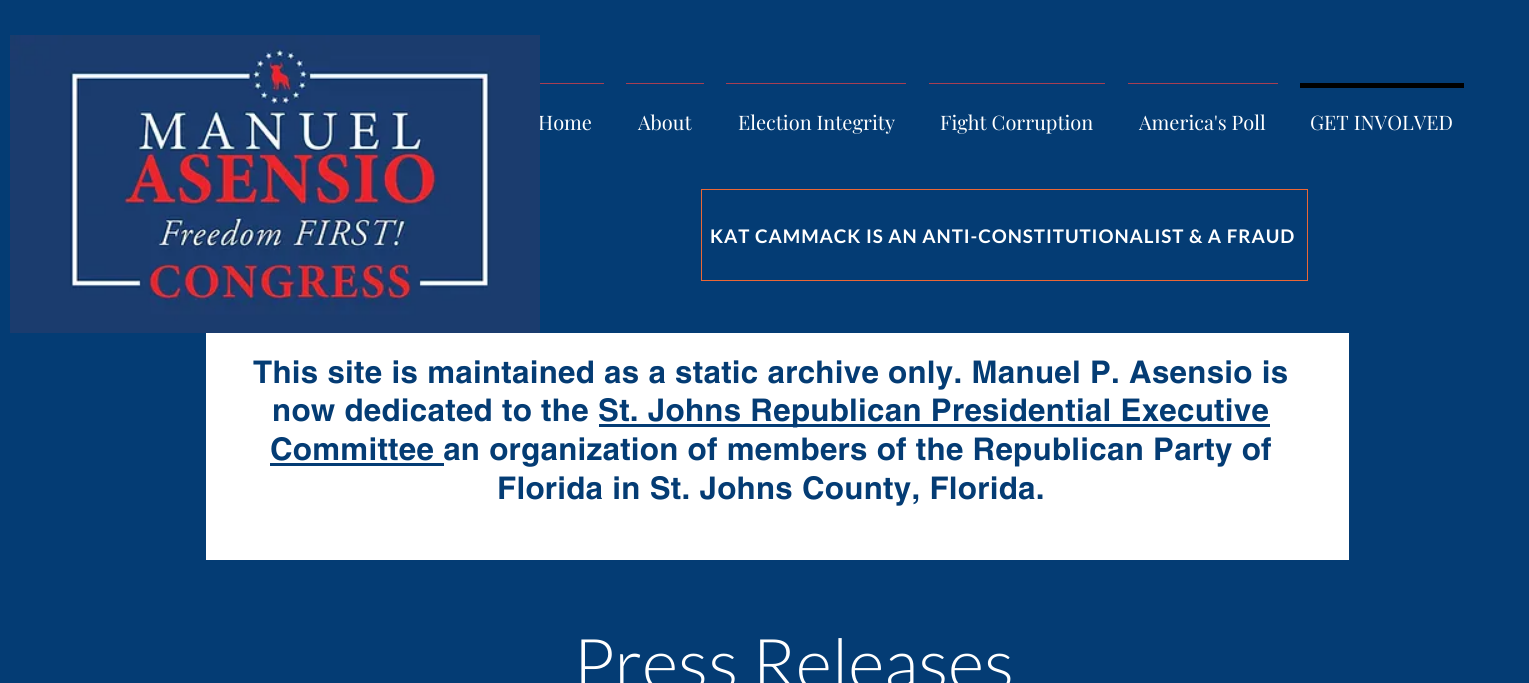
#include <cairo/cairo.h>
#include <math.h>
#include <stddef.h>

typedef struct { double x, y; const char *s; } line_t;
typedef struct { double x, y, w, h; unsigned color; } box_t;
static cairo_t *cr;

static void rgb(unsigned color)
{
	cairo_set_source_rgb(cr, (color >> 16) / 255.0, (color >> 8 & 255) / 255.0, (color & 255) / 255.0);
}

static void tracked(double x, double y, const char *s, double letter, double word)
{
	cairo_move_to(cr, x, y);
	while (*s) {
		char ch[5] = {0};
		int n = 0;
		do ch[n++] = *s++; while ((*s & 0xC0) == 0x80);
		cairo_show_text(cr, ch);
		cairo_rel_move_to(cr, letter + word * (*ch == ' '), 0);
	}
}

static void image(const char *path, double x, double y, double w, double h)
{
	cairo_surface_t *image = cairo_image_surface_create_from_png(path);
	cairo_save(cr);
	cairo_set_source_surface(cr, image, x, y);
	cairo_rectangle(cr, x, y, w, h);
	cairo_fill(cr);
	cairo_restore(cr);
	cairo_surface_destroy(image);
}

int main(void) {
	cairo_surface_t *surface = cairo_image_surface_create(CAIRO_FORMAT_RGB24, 1529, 683);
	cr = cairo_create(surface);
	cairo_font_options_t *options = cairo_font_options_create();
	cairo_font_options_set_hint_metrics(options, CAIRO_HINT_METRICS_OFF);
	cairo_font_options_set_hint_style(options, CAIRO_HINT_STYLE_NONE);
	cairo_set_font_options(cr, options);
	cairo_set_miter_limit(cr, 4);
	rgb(0x043c74);
	cairo_paint(cr);
	{
		static const box_t items[] = {
			{540, 83, 64, 1, 0xa73f52},
			{626, 83, 78, 1, 0xa73f52},
			{726, 83, 180, 1, 0xa73f52},
			{929, 83, 176, 1, 0xa73f52},
			{1128, 83, 150, 1, 0xa73f52},
			{1300, 83, 164, 5, 0x000000},
		};
		for (size_t i = 0; i < sizeof items / sizeof *items; i++) {
			rgb(items[i].color);
			cairo_rectangle(cr, items[i].x, items[i].y, items[i].w, items[i].h);
			cairo_fill(cr);
		}
	}
	cairo_rectangle(cr, 701.5, 189.5, 606, 91);
	rgb(0xec6735);
	cairo_set_line_width(cr, 1);
	cairo_stroke(cr);
	{
		static const box_t items[] = {
			{206, 333, 1143, 227, 0xffffff},
			{599, 424, 671, 3, 0x043c74},
			{270, 463, 174, 3, 0x043c74},
		};
		for (size_t i = 0; i < sizeof items / sizeof *items; i++) {
			rgb(items[i].color);
			cairo_rectangle(cr, items[i].x, items[i].y, items[i].w, items[i].h);
			cairo_fill(cr);
		}
	}
	cairo_select_font_face(cr, "Playfair Display", CAIRO_FONT_SLANT_NORMAL, CAIRO_FONT_WEIGHT_NORMAL);
	cairo_set_font_size(cr, 20);
	rgb(0xffffff);
	cairo_move_to(cr, 538, 130);
	cairo_show_text(cr, "Home");
	image("img/1.png", 10, 35, 530, 298);
	{
		static const line_t items[] = {
			{638, 130, "About"},
			{738, 130, "Election Integrity"},
			{940, 130, "Fight Corruption"},
			{1139, 130, "America's Poll"},
			{1310, 130, "GET INVOLVED"},
		};
		for (size_t i = 0; i < sizeof items / sizeof *items; i++) {
			cairo_move_to(cr, items[i].x, items[i].y);
			cairo_show_text(cr, items[i].s);
		}
	}
	cairo_select_font_face(cr, "Lato", CAIRO_FONT_SLANT_NORMAL, CAIRO_FONT_WEIGHT_BOLD);
	cairo_set_font_size(cr, 18.75);
	tracked(710, 243, "KAT CAMMACK IS AN ANTI-CONSTITUTIONALIST & A FRAUD", 0.95, 0);
	cairo_select_font_face(cr, "helvetica", CAIRO_FONT_SLANT_NORMAL, CAIRO_FONT_WEIGHT_BOLD);
	cairo_set_font_size(cr, 31.25);
	rgb(0x043c74);
	{
		static const line_t items[] = {
			{253, 383, "This site is maintained as a static archive only. Manuel P. Asensio is"},
			{272, 421, "now dedicated to the"},
			{598, 421, "St. Johns Republican Presidential Executive"},
			{270, 460, "Committee an organization of members of the Republican Party of"},
			{497, 499, "Florida in St. Johns County, Florida."},
		};
		for (size_t i = 0; i < sizeof items / sizeof *items; i++) {
			tracked(items[i].x, items[i].y, items[i].s, 0.3, 0);
		}
	}
	cairo_select_font_face(cr, "Lato Light", CAIRO_FONT_SLANT_NORMAL, CAIRO_FONT_WEIGHT_NORMAL);
	cairo_set_font_size(cr, 70);
	rgb(0xffffff);
	cairo_move_to(cr, 573, 689);
	cairo_show_text(cr, "Press Releases");
	cairo_surface_write_to_png(surface, "page.png");
	cairo_font_options_destroy(options);
	cairo_destroy(cr);
	cairo_surface_destroy(surface);
	return 0;
}
